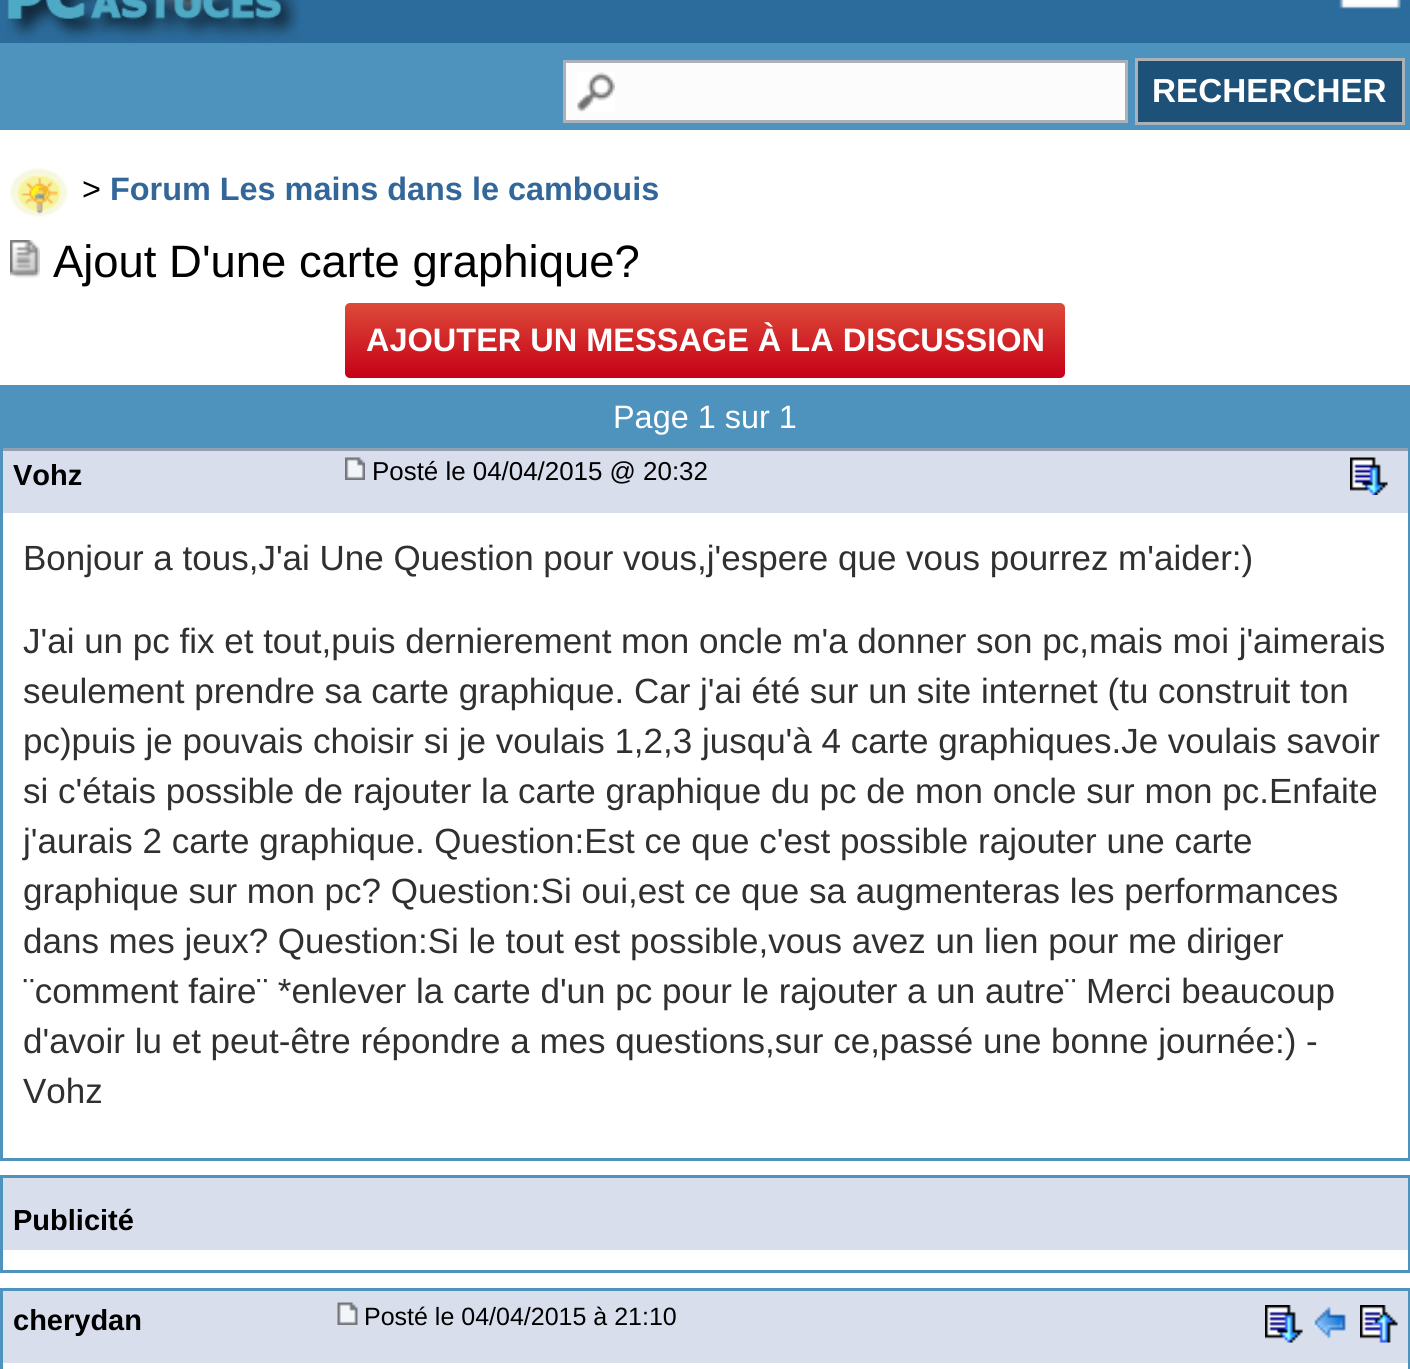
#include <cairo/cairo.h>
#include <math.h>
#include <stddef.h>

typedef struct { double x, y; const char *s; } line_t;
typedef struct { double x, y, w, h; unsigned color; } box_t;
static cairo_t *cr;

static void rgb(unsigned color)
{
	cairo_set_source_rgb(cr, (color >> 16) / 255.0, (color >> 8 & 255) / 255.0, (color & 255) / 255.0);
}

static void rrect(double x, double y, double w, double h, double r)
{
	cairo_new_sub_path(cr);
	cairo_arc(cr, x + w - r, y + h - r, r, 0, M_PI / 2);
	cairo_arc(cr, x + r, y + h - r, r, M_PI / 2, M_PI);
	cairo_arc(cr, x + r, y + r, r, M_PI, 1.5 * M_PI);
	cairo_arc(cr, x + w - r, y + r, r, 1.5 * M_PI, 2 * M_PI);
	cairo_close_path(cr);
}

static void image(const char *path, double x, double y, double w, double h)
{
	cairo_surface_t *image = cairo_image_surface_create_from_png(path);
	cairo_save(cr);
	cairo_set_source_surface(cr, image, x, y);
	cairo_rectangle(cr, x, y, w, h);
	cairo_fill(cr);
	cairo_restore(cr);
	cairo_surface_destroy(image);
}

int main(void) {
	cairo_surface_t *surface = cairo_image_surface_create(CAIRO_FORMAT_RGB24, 1410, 1369);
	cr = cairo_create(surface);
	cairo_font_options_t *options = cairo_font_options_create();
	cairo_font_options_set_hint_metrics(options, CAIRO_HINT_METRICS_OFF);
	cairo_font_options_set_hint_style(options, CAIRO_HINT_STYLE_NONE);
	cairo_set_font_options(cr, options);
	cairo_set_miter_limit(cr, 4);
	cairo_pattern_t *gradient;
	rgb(0xffffff);
	cairo_paint(cr);
	rgb(0x2c6c9d);
	cairo_rectangle(cr, 0, 0, 1410, 43);
	cairo_fill(cr);
	image("img/1.png", 6, 0, 294, 43);
	image("img/2.png", 1339, 0, 62, 9);
	rgb(0x4e93bd);
	cairo_rectangle(cr, 0, 43, 1410, 87);
	cairo_fill(cr);
	rgb(0xfcfcfc);
	cairo_rectangle(cr, 566, 63, 559, 57);
	cairo_fill(cr);
	image("img/3.png", 577, 72, 38, 41);
	cairo_rectangle(cr, 564.5, 61.5, 562, 60);
	rgb(0xacb1b7);
	cairo_set_line_width(cr, 3);
	cairo_stroke(cr);
	rgb(0x1e5178);
	cairo_rectangle(cr, 1136.5, 59.5, 267, 64);
	cairo_fill_preserve(cr);
	rgb(0xacb1b7);
	cairo_stroke(cr);
	image("img/4.png", 10, 168, 58, 49);
	image("img/5.png", 10, 240, 30, 38);
	gradient = cairo_pattern_create_linear(705, 302, 705, 378);
	cairo_pattern_add_color_stop_rgba(gradient, 0, 0.867, 0.294, 0.224, 1);
	cairo_pattern_add_color_stop_rgba(gradient, 1, 0.776, 0, 0.09, 1);
	cairo_set_source(cr, gradient);
	cairo_pattern_destroy(gradient);
	rrect(345, 303, 720, 75, 5);
	cairo_fill(cr);
	{
		static const box_t items[] = {
			{0, 385, 1410, 63, 0x4e93bd},
			{3, 451, 1405, 62, 0xd8deeb},
			{0, 448, 1410, 3, 0x90a0b0},
			{1408, 448, 2, 712, 0x4e93bd},
			{0, 448, 3, 65, 0x4e93bd},
		};
		for (size_t i = 0; i < sizeof items / sizeof *items; i++) {
			rgb(items[i].color);
			cairo_rectangle(cr, items[i].x, items[i].y, items[i].w, items[i].h);
			cairo_fill(cr);
		}
	}
	image("img/6.png", 345, 457, 20, 23);
	image("img/7.png", 1350, 457, 38, 38);
	{
		static const box_t items[] = {
			{0, 513, 3, 648, 0x4e93bd},
			{3, 1158, 1407, 3, 0x4e93bd},
			{3, 1178, 1405, 72, 0xd8deeb},
			{0, 1175, 1410, 3, 0x4e93bd},
			{1408, 1175, 2, 98, 0x4e93bd},
			{0, 1175, 3, 98, 0x4e93bd},
			{3, 1270, 1407, 3, 0x4e93bd},
			{3, 1291, 1405, 72, 0xd8deeb},
			{0, 1288, 1410, 3, 0x4e93bd},
			{1408, 1288, 2, 81, 0x4e93bd},
			{0, 1288, 3, 81, 0x4e93bd},
		};
		for (size_t i = 0; i < sizeof items / sizeof *items; i++) {
			rgb(items[i].color);
			cairo_rectangle(cr, items[i].x, items[i].y, items[i].w, items[i].h);
			cairo_fill(cr);
		}
	}
	image("img/8.png", 337, 1302, 21, 23);
	image("img/9.png", 1265, 1305, 38, 38);
	image("img/10.png", 1312, 1306, 34, 33);
	image("img/11.png", 1360, 1305, 38, 38);
	cairo_select_font_face(cr, "Liberation Sans", CAIRO_FONT_SLANT_NORMAL, CAIRO_FONT_WEIGHT_BOLD);
	cairo_set_font_size(cr, 33.25);
	rgb(0xffffff);
	cairo_move_to(cr, 1152, 102);
	cairo_show_text(cr, "RECHERCHER");
	cairo_select_font_face(cr, "Liberation Sans", CAIRO_FONT_SLANT_NORMAL, CAIRO_FONT_WEIGHT_NORMAL);
	cairo_set_font_size(cr, 32.4);
	rgb(0x000000);
	cairo_move_to(cr, 82, 200);
	cairo_show_text(cr, ">");
	cairo_select_font_face(cr, "Liberation Sans", CAIRO_FONT_SLANT_NORMAL, CAIRO_FONT_WEIGHT_BOLD);
	rgb(0x336699);
	cairo_move_to(cr, 110, 200);
	cairo_show_text(cr, "Forum Les mains dans le cambouis");
	cairo_select_font_face(cr, "Liberation Sans", CAIRO_FONT_SLANT_NORMAL, CAIRO_FONT_WEIGHT_NORMAL);
	cairo_set_font_size(cr, 45.4);
	rgb(0x000000);
	cairo_move_to(cr, 53, 277);
	cairo_show_text(cr, "Ajout D'une carte graphique?");
	cairo_select_font_face(cr, "Liberation Sans", CAIRO_FONT_SLANT_NORMAL, CAIRO_FONT_WEIGHT_BOLD);
	cairo_set_font_size(cr, 32.5);
	rgb(0xffffff);
	cairo_move_to(cr, 366, 351);
	cairo_show_text(cr, "AJOUTER UN MESSAGE À LA DISCUSSION");
	cairo_select_font_face(cr, "Liberation Sans", CAIRO_FONT_SLANT_NORMAL, CAIRO_FONT_WEIGHT_NORMAL);
	cairo_set_font_size(cr, 32.4);
	cairo_move_to(cr, 613, 428);
	cairo_show_text(cr, "Page 1 sur 1");
	cairo_select_font_face(cr, "Liberation Sans", CAIRO_FONT_SLANT_NORMAL, CAIRO_FONT_WEIGHT_BOLD);
	cairo_set_font_size(cr, 29);
	rgb(0x000000);
	cairo_move_to(cr, 13, 485);
	cairo_show_text(cr, "Vohz");
	cairo_select_font_face(cr, "Liberation Sans", CAIRO_FONT_SLANT_NORMAL, CAIRO_FONT_WEIGHT_NORMAL);
	cairo_set_font_size(cr, 25.9);
	cairo_move_to(cr, 372, 480);
	cairo_show_text(cr, "Posté le 04/04/2015 @ 20:32");
	cairo_set_font_size(cr, 35);
	rgb(0x303030);
	{
		static const line_t items[] = {
			{23, 570, "Bonjour a tous,J'ai Une Question pour vous,j'espere que vous pourrez m'aider:)"},
			{23, 653, "J'ai un pc fix et tout,puis dernierement mon oncle m'a donner son pc,mais moi j'aimerais"},
			{23, 703, "seulement prendre sa carte graphique. Car j'ai été sur un site internet (tu construit ton"},
			{23, 753, "pc)puis je pouvais choisir si je voulais 1,2,3 jusqu'à 4 carte graphiques.Je voulais savoir"},
			{23, 803, "si c'étais possible de rajouter la carte graphique du pc de mon oncle sur mon pc.Enfaite"},
			{23, 853, "j'aurais 2 carte graphique. Question:Est ce que c'est possible rajouter une carte"},
			{23, 903, "graphique sur mon pc? Question:Si oui,est ce que sa augmenteras les performances"},
			{23, 953, "dans mes jeux? Question:Si le tout est possible,vous avez un lien pour me diriger"},
			{23, 1003, "¨comment faire¨ *enlever la carte d'un pc pour le rajouter a un autre¨ Merci beaucoup"},
			{23, 1053, "d'avoir lu et peut-être répondre a mes questions,sur ce,passé une bonne journée:) -"},
			{23, 1103, "Vohz"},
		};
		for (size_t i = 0; i < sizeof items / sizeof *items; i++) {
			cairo_move_to(cr, items[i].x, items[i].y);
			cairo_show_text(cr, items[i].s);
		}
	}
	cairo_select_font_face(cr, "Liberation Sans", CAIRO_FONT_SLANT_NORMAL, CAIRO_FONT_WEIGHT_BOLD);
	cairo_set_font_size(cr, 29);
	rgb(0x000000);
	cairo_move_to(cr, 13, 1230);
	cairo_show_text(cr, "Publicité");
	cairo_move_to(cr, 13, 1330);
	cairo_show_text(cr, "cherydan");
	cairo_select_font_face(cr, "Liberation Sans", CAIRO_FONT_SLANT_NORMAL, CAIRO_FONT_WEIGHT_NORMAL);
	cairo_set_font_size(cr, 25);
	cairo_move_to(cr, 364, 1325);
	cairo_show_text(cr, "Posté le 04/04/2015 à 21:10");
	cairo_surface_write_to_png(surface, "page.png");
	cairo_font_options_destroy(options);
	cairo_destroy(cr);
	cairo_surface_destroy(surface);
	return 0;
}
